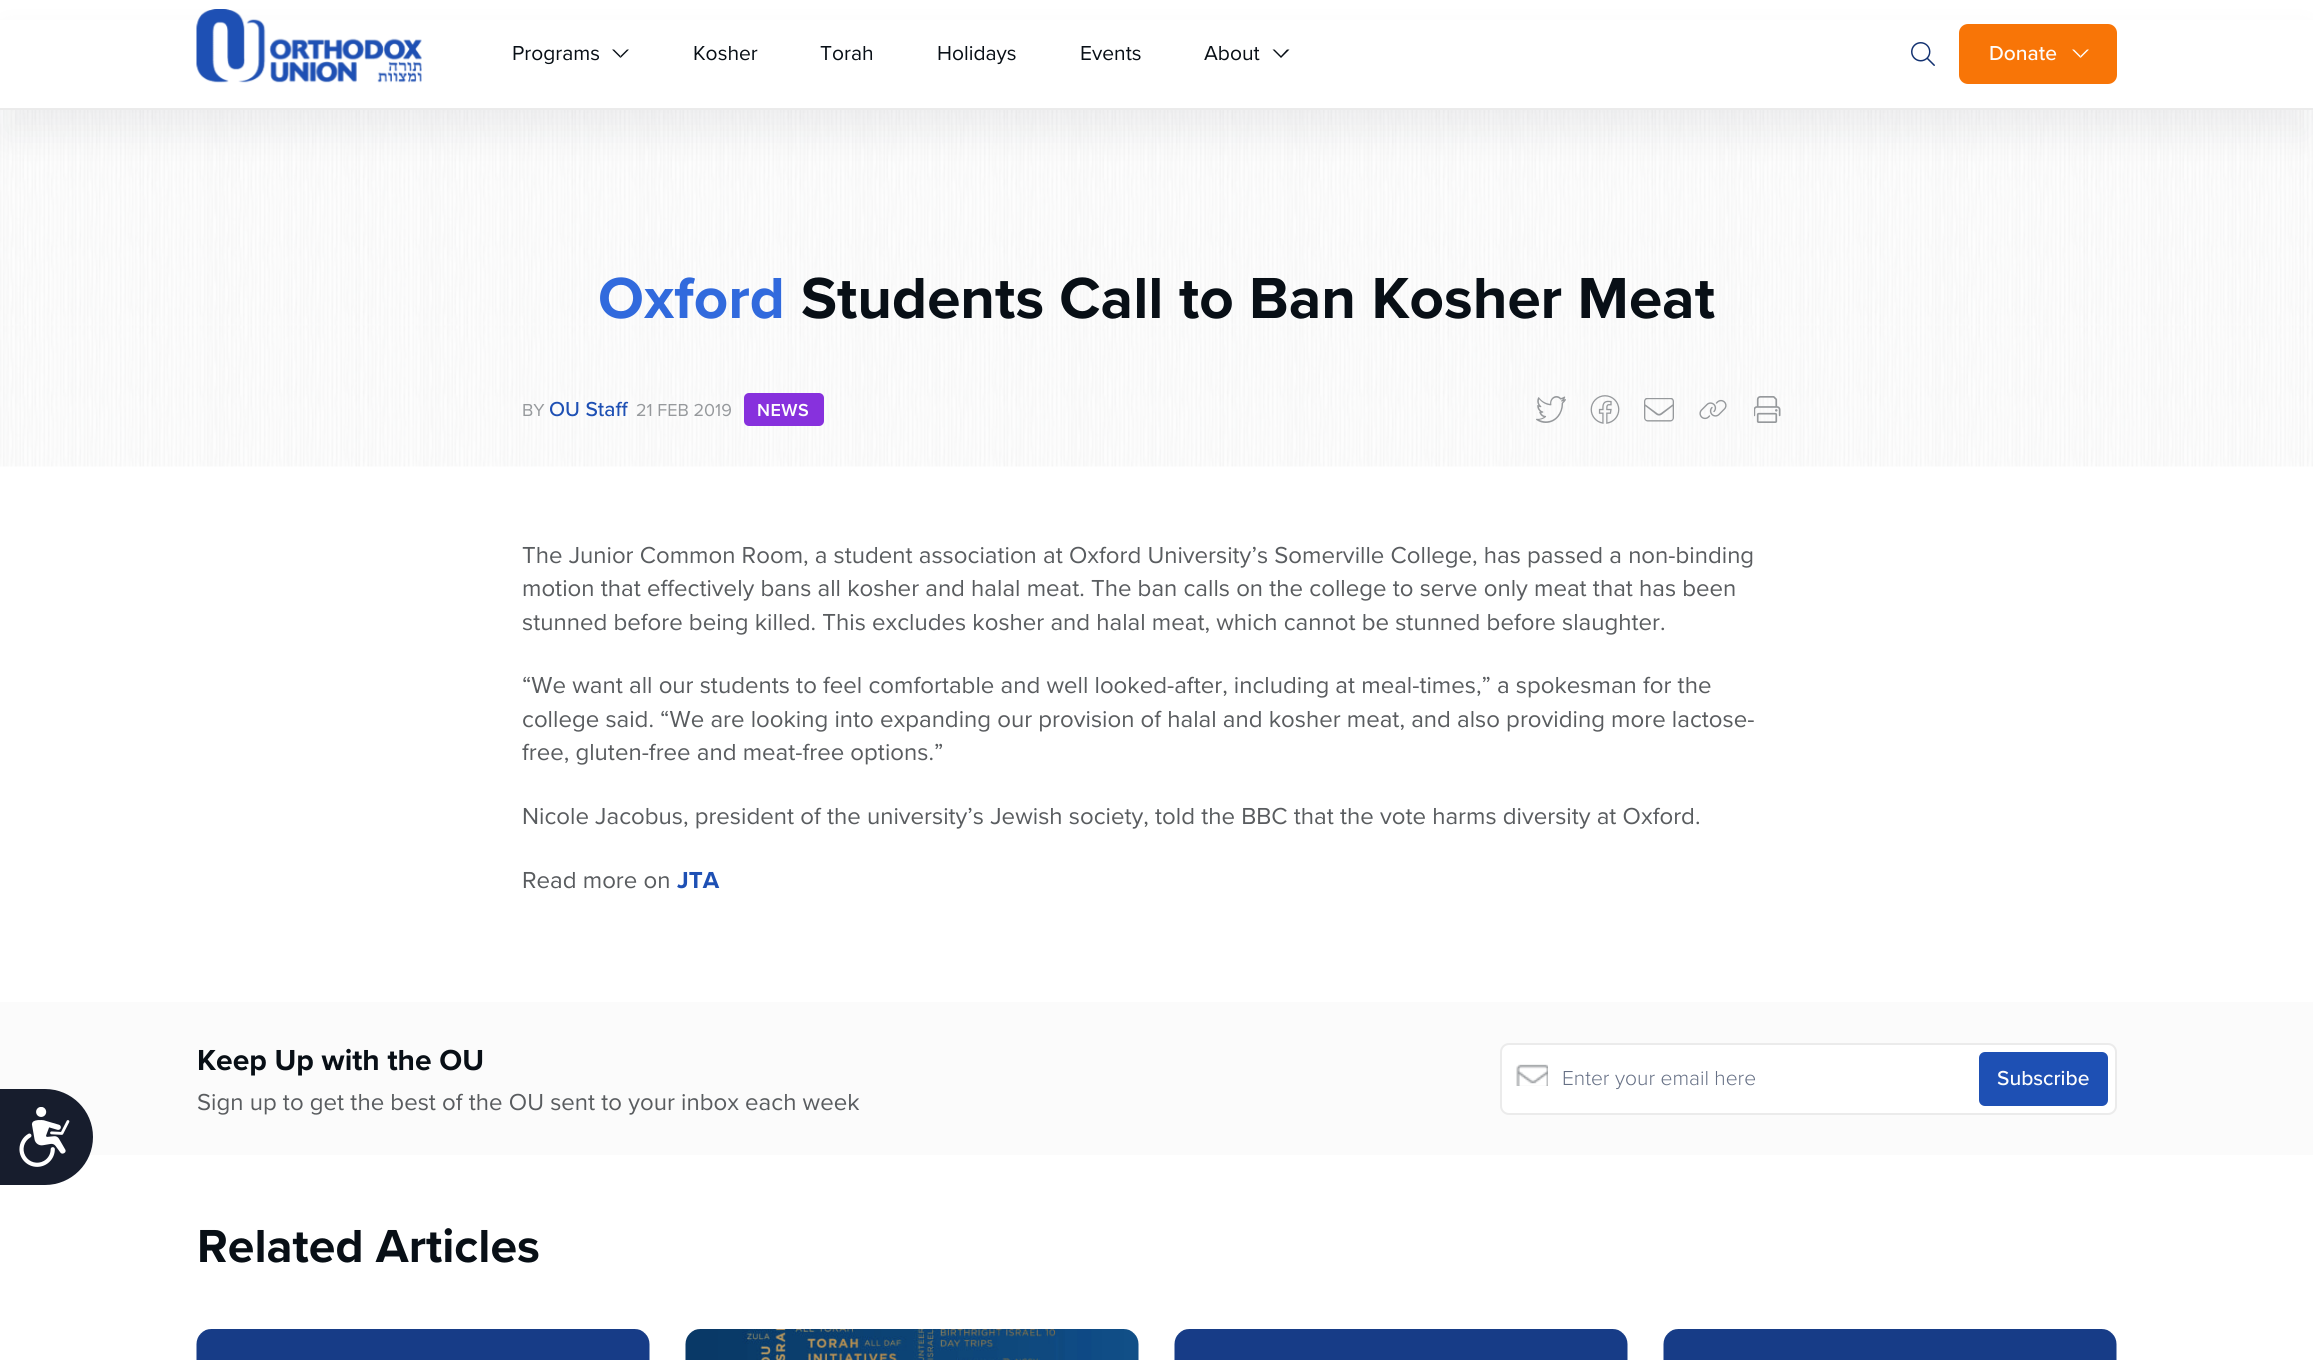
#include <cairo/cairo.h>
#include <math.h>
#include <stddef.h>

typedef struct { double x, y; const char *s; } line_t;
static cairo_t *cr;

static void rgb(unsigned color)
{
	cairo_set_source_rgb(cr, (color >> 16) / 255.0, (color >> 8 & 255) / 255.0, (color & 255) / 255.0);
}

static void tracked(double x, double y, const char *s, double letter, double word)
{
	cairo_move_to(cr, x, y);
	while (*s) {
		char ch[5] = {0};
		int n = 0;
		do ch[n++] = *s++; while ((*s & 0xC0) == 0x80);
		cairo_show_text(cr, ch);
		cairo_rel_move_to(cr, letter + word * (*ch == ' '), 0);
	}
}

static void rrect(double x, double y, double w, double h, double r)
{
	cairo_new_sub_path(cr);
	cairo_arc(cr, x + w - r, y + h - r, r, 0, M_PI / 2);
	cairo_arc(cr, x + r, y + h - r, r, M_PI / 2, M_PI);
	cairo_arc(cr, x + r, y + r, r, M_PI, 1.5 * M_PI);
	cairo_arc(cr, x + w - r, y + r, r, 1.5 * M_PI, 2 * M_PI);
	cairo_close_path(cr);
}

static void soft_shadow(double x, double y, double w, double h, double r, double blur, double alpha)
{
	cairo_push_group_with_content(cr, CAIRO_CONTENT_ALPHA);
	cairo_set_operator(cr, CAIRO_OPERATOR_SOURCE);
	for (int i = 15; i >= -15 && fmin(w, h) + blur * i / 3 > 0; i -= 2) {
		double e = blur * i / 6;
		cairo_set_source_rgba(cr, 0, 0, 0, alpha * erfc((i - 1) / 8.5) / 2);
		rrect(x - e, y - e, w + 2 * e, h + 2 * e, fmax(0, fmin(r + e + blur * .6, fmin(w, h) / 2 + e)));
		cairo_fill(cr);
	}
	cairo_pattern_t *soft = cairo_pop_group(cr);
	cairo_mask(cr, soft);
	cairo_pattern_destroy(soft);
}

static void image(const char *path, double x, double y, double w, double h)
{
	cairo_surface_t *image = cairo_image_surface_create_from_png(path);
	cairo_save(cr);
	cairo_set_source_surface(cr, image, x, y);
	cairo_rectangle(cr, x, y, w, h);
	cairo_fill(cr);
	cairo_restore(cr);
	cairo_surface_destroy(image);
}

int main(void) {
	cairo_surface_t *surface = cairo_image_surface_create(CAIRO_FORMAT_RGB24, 2313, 1360);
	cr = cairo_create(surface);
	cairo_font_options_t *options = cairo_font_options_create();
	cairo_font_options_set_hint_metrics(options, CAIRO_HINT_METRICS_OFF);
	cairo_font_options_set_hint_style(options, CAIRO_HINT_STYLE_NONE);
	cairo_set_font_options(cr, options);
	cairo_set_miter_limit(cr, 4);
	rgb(0xffffff);
	cairo_paint(cr);
	image("img/3.png", 0, 110, 2313, 357);
	rgb(0x101828);
	soft_shadow(6, 36, 2301, 98, 0, 18, 0.06);
	rgb(0xffffff);
	cairo_rectangle(cr, 0, 20, 2313, 88);
	cairo_fill(cr);
	rgb(0xebebeb);
	cairo_rectangle(cr, 0, 108, 2313, 2);
	cairo_fill(cr);
	image("img/1.png", 196, 9, 226, 74);
	rgb(0x080f16);
	cairo_new_path(cr);
	cairo_move_to(cr, 629, 49.5);
	cairo_line_to(cr, 620.5, 58);
	cairo_line_to(cr, 620.5, 56);
	cairo_line_to(cr, 627, 49.5);
	cairo_close_path(cr);
	cairo_fill(cr);
	cairo_new_path(cr);
	cairo_move_to(cr, 620.5, 58);
	cairo_line_to(cr, 612, 49.5);
	cairo_line_to(cr, 614, 49.5);
	cairo_line_to(cr, 620.5, 56);
	cairo_close_path(cr);
	cairo_fill(cr);
	cairo_new_path(cr);
	cairo_move_to(cr, 1289.5, 49.5);
	cairo_line_to(cr, 1281, 58);
	cairo_line_to(cr, 1281, 56);
	cairo_line_to(cr, 1287, 49.5);
	cairo_close_path(cr);
	cairo_move_to(cr, 1281, 58);
	cairo_line_to(cr, 1272.5, 49.5);
	cairo_line_to(cr, 1274.5, 49.5);
	cairo_line_to(cr, 1281, 56);
	cairo_close_path(cr);
	cairo_fill(cr);
	image("img/2.png", 1911, 42, 24, 24);
	rgb(0xf87507);
	rrect(1959, 24, 158, 60, 9);
	cairo_fill(cr);
	rgb(0xffffff);
	cairo_new_path(cr);
	cairo_move_to(cr, 2089, 49.5);
	cairo_line_to(cr, 2080.5, 58);
	cairo_line_to(cr, 2080.5, 56);
	cairo_line_to(cr, 2087, 49.5);
	cairo_close_path(cr);
	cairo_fill(cr);
	cairo_new_path(cr);
	cairo_move_to(cr, 2080.5, 58);
	cairo_line_to(cr, 2072, 49.5);
	cairo_line_to(cr, 2074, 49.5);
	cairo_line_to(cr, 2080.5, 56);
	cairo_close_path(cr);
	cairo_fill(cr);
	rgb(0x8731dd);
	rrect(744, 393, 80, 33, 5);
	cairo_fill(cr);
	image("img/4.png", 1536, 396, 30, 27);
	image("img/5.png", 1590, 395, 30, 29);
	image("img/6.png", 1644, 398, 30, 24);
	image("img/7.png", 1699, 399, 28, 21);
	image("img/8.png", 1754, 396, 27, 27);
	rgb(0xfbfbfb);
	cairo_rectangle(cr, 0, 1002, 2313, 153);
	cairo_fill(cr);
	rgb(0xffffff);
	rrect(1501, 1044, 615, 70, 8);
	cairo_fill_preserve(cr);
	rgb(0xebebeb);
	cairo_stroke(cr);
	image("img/9.png", 1516, 1064, 32, 22);
	rgb(0x1e50b4);
	rrect(1979, 1052, 129, 54, 6);
	cairo_fill(cr);
	rgb(0x171d2d);
	cairo_new_path(cr);
	cairo_move_to(cr, 0, 1089);
	cairo_line_to(cr, 45, 1089);
	cairo_curve_to(cr, 71.5, 1089, 93, 1110.5, 93, 1137);
	cairo_curve_to(cr, 93, 1163.5, 71.5, 1185, 45, 1185);
	cairo_line_to(cr, 0, 1185);
	cairo_close_path(cr);
	cairo_fill(cr);
	image("img/10.png", 19, 1107, 51, 60);
	image("img/11.png", 196, 1329, 454, 31);
	image("img/12.png", 685, 1329, 454, 31);
	image("img/11.png", 1174, 1329, 454, 31);
	image("img/11.png", 1663, 1329, 454, 31);
	cairo_select_font_face(cr, "Proxima Nova", CAIRO_FONT_SLANT_NORMAL, CAIRO_FONT_WEIGHT_NORMAL);
	cairo_set_font_size(cr, 21);
	rgb(0x080f16);
	{
		static const line_t items[] = {
			{512, 60, "Programs"},
			{693, 60, "Kosher"},
			{820, 60, "Torah"},
			{937, 60, "Holidays"},
			{1080, 60, "Events"},
			{1204, 60, "About"},
		};
		for (size_t i = 0; i < sizeof items / sizeof *items; i++) {
			cairo_move_to(cr, items[i].x, items[i].y);
			cairo_show_text(cr, items[i].s);
		}
	}
	cairo_select_font_face(cr, "Proxima Nova Medium", CAIRO_FONT_SLANT_NORMAL, CAIRO_FONT_WEIGHT_NORMAL);
	rgb(0xfdfdfd);
	cairo_move_to(cr, 1989, 60);
	cairo_show_text(cr, "Donate");
	cairo_select_font_face(cr, "Proxima Nova", CAIRO_FONT_SLANT_NORMAL, CAIRO_FONT_WEIGHT_BOLD);
	cairo_set_font_size(cr, 60);
	rgb(0x316add);
	cairo_move_to(cr, 598, 318);
	cairo_show_text(cr, "Oxford");
	rgb(0x080f16);
	cairo_move_to(cr, 801, 318);
	cairo_show_text(cr, "Students Call to Ban Kosher Meat");
	cairo_select_font_face(cr, "Proxima Nova", CAIRO_FONT_SLANT_NORMAL, CAIRO_FONT_WEIGHT_NORMAL);
	cairo_set_font_size(cr, 18);
	rgb(0x96999c);
	cairo_move_to(cr, 522, 416);
	cairo_show_text(cr, "BY");
	cairo_select_font_face(cr, "Proxima Nova Medium", CAIRO_FONT_SLANT_NORMAL, CAIRO_FONT_WEIGHT_NORMAL);
	cairo_set_font_size(cr, 21);
	rgb(0x1e50b4);
	cairo_move_to(cr, 549, 416);
	cairo_show_text(cr, "OU Staff");
	cairo_select_font_face(cr, "Proxima Nova", CAIRO_FONT_SLANT_NORMAL, CAIRO_FONT_WEIGHT_NORMAL);
	cairo_set_font_size(cr, 18);
	rgb(0x96999c);
	cairo_move_to(cr, 636, 416);
	cairo_show_text(cr, "21 FEB 2019");
	cairo_select_font_face(cr, "Proxima Nova SemiBold", CAIRO_FONT_SLANT_NORMAL, CAIRO_FONT_WEIGHT_NORMAL);
	rgb(0xfdfdfd);
	tracked(757, 416, "NEWS", 0.5, 0);
	cairo_select_font_face(cr, "Proxima Nova", CAIRO_FONT_SLANT_NORMAL, CAIRO_FONT_WEIGHT_NORMAL);
	cairo_set_font_size(cr, 24);
	rgb(0x595c5f);
	{
		static const line_t items[] = {
			{522, 563, "The Junior Common Room, a student association at Oxford University’s Somerville College, has passed a non-binding"},
			{522, 596, "motion that effectively bans all kosher and halal meat. The ban calls on the college to serve only meat that has been"},
			{522, 630, "stunned before being killed. This excludes kosher and halal meat, which cannot be stunned before slaughter."},
			{522, 693, "“We want all our students to feel comfortable and well looked-after, including at meal-times,” a spokesman for the"},
			{522, 727, "college said. “We are looking into expanding our provision of halal and kosher meat, and also providing more lactose-"},
			{522, 760, "free, gluten-free and meat-free options.”"},
			{522, 824, "Nicole Jacobus, president of the university’s Jewish society, told the BBC that the vote harms diversity at Oxford."},
			{522, 888, "Read more on"},
		};
		for (size_t i = 0; i < sizeof items / sizeof *items; i++) {
			cairo_move_to(cr, items[i].x, items[i].y);
			cairo_show_text(cr, items[i].s);
		}
	}
	cairo_select_font_face(cr, "Proxima Nova", CAIRO_FONT_SLANT_NORMAL, CAIRO_FONT_WEIGHT_BOLD);
	rgb(0x1e50b4);
	cairo_move_to(cr, 677, 888);
	cairo_show_text(cr, "JTA");
	cairo_set_font_size(cr, 30);
	rgb(0x080f16);
	cairo_move_to(cr, 197, 1070);
	cairo_show_text(cr, "Keep Up with the OU");
	cairo_select_font_face(cr, "Proxima Nova", CAIRO_FONT_SLANT_NORMAL, CAIRO_FONT_WEIGHT_NORMAL);
	cairo_set_font_size(cr, 24);
	rgb(0x595c5f);
	cairo_move_to(cr, 197, 1110);
	cairo_show_text(cr, "Sign up to get the best of the OU sent to your inbox each week");
	cairo_select_font_face(cr, "Proxima Nova Light", CAIRO_FONT_SLANT_NORMAL, CAIRO_FONT_WEIGHT_NORMAL);
	cairo_set_font_size(cr, 21);
	rgb(0x667085);
	cairo_move_to(cr, 1562, 1085);
	cairo_show_text(cr, "Enter your email here");
	cairo_select_font_face(cr, "Proxima Nova Medium", CAIRO_FONT_SLANT_NORMAL, CAIRO_FONT_WEIGHT_NORMAL);
	rgb(0xfdfdfd);
	cairo_move_to(cr, 1997, 1085);
	cairo_show_text(cr, "Subscribe");
	cairo_select_font_face(cr, "Proxima Nova", CAIRO_FONT_SLANT_NORMAL, CAIRO_FONT_WEIGHT_BOLD);
	cairo_set_font_size(cr, 48);
	rgb(0x080f16);
	cairo_move_to(cr, 197, 1262);
	cairo_show_text(cr, "Related Articles");
	cairo_surface_write_to_png(surface, "page.png");
	cairo_font_options_destroy(options);
	cairo_destroy(cr);
	cairo_surface_destroy(surface);
	return 0;
}
